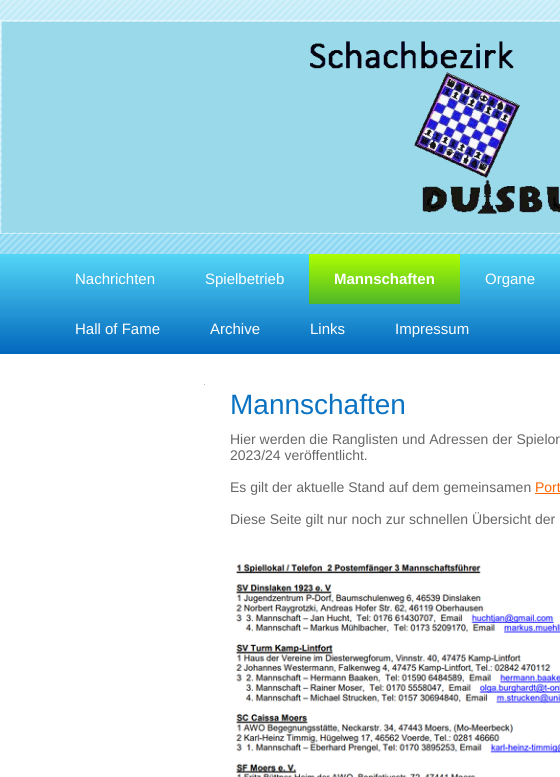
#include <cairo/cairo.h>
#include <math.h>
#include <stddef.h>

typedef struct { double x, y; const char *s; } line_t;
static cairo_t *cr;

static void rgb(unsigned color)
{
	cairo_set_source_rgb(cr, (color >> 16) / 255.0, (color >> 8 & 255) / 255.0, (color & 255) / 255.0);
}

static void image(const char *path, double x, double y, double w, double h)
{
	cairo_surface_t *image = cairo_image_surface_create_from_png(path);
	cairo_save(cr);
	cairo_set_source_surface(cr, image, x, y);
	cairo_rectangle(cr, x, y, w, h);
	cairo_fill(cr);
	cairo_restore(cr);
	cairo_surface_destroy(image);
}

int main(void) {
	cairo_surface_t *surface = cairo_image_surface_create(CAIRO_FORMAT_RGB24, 560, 777);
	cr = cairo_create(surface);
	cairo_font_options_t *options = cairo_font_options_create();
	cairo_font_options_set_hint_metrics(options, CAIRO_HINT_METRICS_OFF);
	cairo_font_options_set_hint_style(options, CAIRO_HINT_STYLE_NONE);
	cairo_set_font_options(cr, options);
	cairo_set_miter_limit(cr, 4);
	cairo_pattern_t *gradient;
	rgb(0xffffff);
	cairo_paint(cr);
	image("img/1.png", 0, 0, 560, 254);
	cairo_rectangle(cr, 0.5, 20.5, 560, 213);
	cairo_set_source_rgba(cr, 1, 1, 1, 0.5);
	cairo_set_line_width(cr, 1);
	cairo_stroke(cr);
	image("img/2.png", 2, 22, 558, 210);
	gradient = cairo_pattern_create_linear(280, 254, 280, 354);
	cairo_pattern_add_color_stop_rgba(gradient, 0, 0.325, 0.839, 0.969, 1);
	cairo_pattern_add_color_stop_rgba(gradient, 1, 0.008, 0.404, 0.737, 1);
	cairo_set_source(cr, gradient);
	cairo_pattern_destroy(gradient);
	cairo_rectangle(cr, 0, 254, 560, 100);
	cairo_fill(cr);
	gradient = cairo_pattern_create_linear(385, 254, 385, 304);
	cairo_pattern_add_color_stop_rgba(gradient, 0, 0.678, 0.996, 0, 1);
	cairo_pattern_add_color_stop_rgba(gradient, 1, 0.31, 0.718, 0.157, 1);
	cairo_set_source(cr, gradient);
	cairo_pattern_destroy(gradient);
	cairo_rectangle(cr, 309, 254, 151, 50);
	cairo_fill(cr);
	rgb(0xbfbfbf);
	cairo_rectangle(cr, 204, 384, 1, 1);
	cairo_fill(cr);
	rgb(0xff6600);
	cairo_rectangle(cr, 535, 493, 25, 1);
	cairo_fill(cr);
	image("img/3.png", 236, 564, 324, 213);
	cairo_select_font_face(cr, "Liberation Sans", CAIRO_FONT_SLANT_NORMAL, CAIRO_FONT_WEIGHT_NORMAL);
	cairo_set_font_size(cr, 15);
	rgb(0xffffff);
	cairo_move_to(cr, 75, 284);
	cairo_show_text(cr, "Nachrichten");
	cairo_move_to(cr, 205, 284);
	cairo_show_text(cr, "Spielbetrieb");
	cairo_select_font_face(cr, "Liberation Sans", CAIRO_FONT_SLANT_NORMAL, CAIRO_FONT_WEIGHT_BOLD);
	cairo_move_to(cr, 334, 284);
	cairo_show_text(cr, "Mannschaften");
	cairo_select_font_face(cr, "Liberation Sans", CAIRO_FONT_SLANT_NORMAL, CAIRO_FONT_WEIGHT_NORMAL);
	{
		static const line_t items[] = {
			{485, 284, "Organe"},
			{75, 334, "Hall of Fame"},
			{210, 334, "Archive"},
			{310, 334, "Links"},
			{395, 334, "Impressum"},
		};
		for (size_t i = 0; i < sizeof items / sizeof *items; i++) {
			cairo_move_to(cr, items[i].x, items[i].y);
			cairo_show_text(cr, items[i].s);
		}
	}
	cairo_set_font_size(cr, 28);
	rgb(0x0b73c2);
	cairo_move_to(cr, 230, 414);
	cairo_show_text(cr, "Mannschaften");
	cairo_set_font_size(cr, 14);
	rgb(0x666666);
	{
		static const line_t items[] = {
			{230, 444, "Hier werden die Ranglisten und Adressen der Spielor"},
			{230, 460, "2023/24 veröffentlicht."},
			{230, 492, "Es gilt der aktuelle Stand auf dem gemeinsamen"},
		};
		for (size_t i = 0; i < sizeof items / sizeof *items; i++) {
			cairo_move_to(cr, items[i].x, items[i].y);
			cairo_show_text(cr, items[i].s);
		}
	}
	rgb(0xff6600);
	cairo_move_to(cr, 535, 492);
	cairo_show_text(cr, "Port");
	rgb(0x666666);
	cairo_move_to(cr, 230, 524);
	cairo_show_text(cr, "Diese Seite gilt nur noch zur schnellen Übersicht der");
	cairo_surface_write_to_png(surface, "page.png");
	cairo_font_options_destroy(options);
	cairo_destroy(cr);
	cairo_surface_destroy(surface);
	return 0;
}
